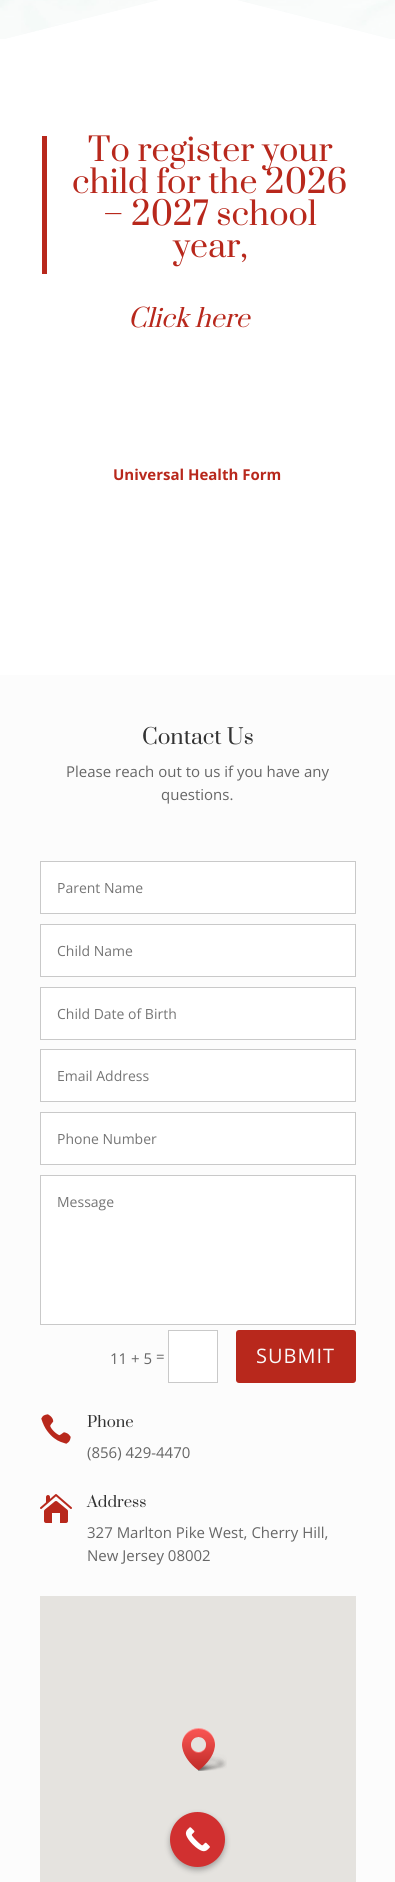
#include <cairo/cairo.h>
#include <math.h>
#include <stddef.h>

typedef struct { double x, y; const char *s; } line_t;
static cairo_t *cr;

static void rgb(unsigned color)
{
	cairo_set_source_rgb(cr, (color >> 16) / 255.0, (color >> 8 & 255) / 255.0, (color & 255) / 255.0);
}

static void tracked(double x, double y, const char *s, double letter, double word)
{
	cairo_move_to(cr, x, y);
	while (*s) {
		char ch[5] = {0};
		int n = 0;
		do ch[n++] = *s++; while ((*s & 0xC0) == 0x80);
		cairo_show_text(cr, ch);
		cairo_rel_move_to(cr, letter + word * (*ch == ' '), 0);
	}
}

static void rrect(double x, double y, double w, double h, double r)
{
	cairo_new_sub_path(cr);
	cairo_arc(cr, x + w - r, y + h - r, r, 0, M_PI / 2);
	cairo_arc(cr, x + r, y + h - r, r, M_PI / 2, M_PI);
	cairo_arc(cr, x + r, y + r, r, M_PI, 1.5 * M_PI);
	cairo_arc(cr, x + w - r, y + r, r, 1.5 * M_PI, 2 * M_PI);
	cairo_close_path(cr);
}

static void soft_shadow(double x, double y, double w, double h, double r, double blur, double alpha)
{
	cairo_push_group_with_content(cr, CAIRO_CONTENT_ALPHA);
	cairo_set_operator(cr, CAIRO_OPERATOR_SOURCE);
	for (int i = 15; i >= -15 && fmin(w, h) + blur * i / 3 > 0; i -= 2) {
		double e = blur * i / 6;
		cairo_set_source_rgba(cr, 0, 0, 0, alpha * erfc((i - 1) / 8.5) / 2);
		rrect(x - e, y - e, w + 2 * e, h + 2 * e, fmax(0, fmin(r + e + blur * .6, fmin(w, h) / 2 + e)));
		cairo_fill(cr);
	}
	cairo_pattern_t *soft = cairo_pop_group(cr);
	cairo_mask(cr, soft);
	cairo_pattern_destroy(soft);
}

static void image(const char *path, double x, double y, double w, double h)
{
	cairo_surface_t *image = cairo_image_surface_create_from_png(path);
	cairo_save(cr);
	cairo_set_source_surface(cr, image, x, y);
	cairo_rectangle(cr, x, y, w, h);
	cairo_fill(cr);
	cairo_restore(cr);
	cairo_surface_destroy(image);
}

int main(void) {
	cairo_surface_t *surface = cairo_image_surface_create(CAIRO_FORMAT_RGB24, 395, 1882);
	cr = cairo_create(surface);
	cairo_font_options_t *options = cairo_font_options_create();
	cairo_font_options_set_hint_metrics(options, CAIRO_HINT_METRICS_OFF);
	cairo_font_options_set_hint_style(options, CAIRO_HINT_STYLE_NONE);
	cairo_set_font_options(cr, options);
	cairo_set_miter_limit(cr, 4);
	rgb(0xffffff);
	cairo_paint(cr);
	image("img/1.png", 0, 0, 395, 39);
	cairo_set_source_rgba(cr, 1, 1, 1, 0.5);
	cairo_new_path(cr);
	cairo_move_to(cr, 0, 40);
	cairo_line_to(cr, 198, -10);
	cairo_line_to(cr, 395, 40);
	cairo_line_to(cr, 395, -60);
	cairo_line_to(cr, 198, -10);
	cairo_line_to(cr, 0, -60);
	cairo_close_path(cr);
	cairo_fill(cr);
	rgb(0xffffff);
	cairo_new_path(cr);
	cairo_move_to(cr, 0, 40);
	cairo_line_to(cr, 395, 40);
	cairo_line_to(cr, 198, -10);
	cairo_close_path(cr);
	cairo_fill(cr);
	rgb(0xb8281c);
	cairo_rectangle(cr, 42, 136, 5, 138);
	cairo_fill(cr);
	rgb(0xfcfcfc);
	cairo_rectangle(cr, 0, 675, 395, 1207);
	cairo_fill(cr);
	rgb(0xffffff);
	cairo_rectangle(cr, 40.5, 861.5, 315, 52);
	cairo_fill_preserve(cr);
	rgb(0xc9c9c9);
	cairo_set_line_width(cr, 1);
	cairo_stroke(cr);
	rgb(0xffffff);
	cairo_rectangle(cr, 40.5, 924.5, 315, 52);
	cairo_fill_preserve(cr);
	rgb(0xc9c9c9);
	cairo_stroke(cr);
	rgb(0xffffff);
	cairo_rectangle(cr, 40.5, 987.5, 315, 52);
	cairo_fill_preserve(cr);
	rgb(0xc9c9c9);
	cairo_stroke(cr);
	rgb(0xffffff);
	cairo_rectangle(cr, 40.5, 1049.5, 315, 52);
	cairo_fill_preserve(cr);
	rgb(0xc9c9c9);
	cairo_stroke(cr);
	rgb(0xffffff);
	cairo_rectangle(cr, 40.5, 1112.5, 315, 52);
	cairo_fill_preserve(cr);
	rgb(0xc9c9c9);
	cairo_stroke(cr);
	rgb(0xffffff);
	cairo_rectangle(cr, 40.5, 1175.5, 315, 149);
	cairo_fill_preserve(cr);
	rgb(0xc9c9c9);
	cairo_stroke(cr);
	rgb(0xffffff);
	cairo_rectangle(cr, 168.5, 1330.5, 49, 52);
	cairo_fill_preserve(cr);
	rgb(0xc9c9c9);
	cairo_stroke(cr);
	rgb(0xb8281c);
	rrect(236, 1330, 120, 53, 3);
	cairo_fill(cr);
	image("img/2.png", 41, 1414, 30, 30);
	image("img/3.png", 40, 1494, 32, 29);
	rgb(0xe5e3df);
	cairo_rectangle(cr, 40, 1596, 316, 286);
	cairo_fill(cr);
	image("img/4.png", 182, 1728, 45, 43);
	rgb(0x000000);
	soft_shadow(170, 1815, 55, 55, 27.5, 3, 0.3);
	rgb(0xd13030);
	cairo_arc(cr, 197.5, 1839.5, 27.5, 0, 2 * M_PI);
	cairo_fill(cr);
	image("img/5.png", 185, 1827, 25, 25);
	cairo_select_font_face(cr, "Prata", CAIRO_FONT_SLANT_NORMAL, CAIRO_FONT_WEIGHT_NORMAL);
	cairo_set_font_size(cr, 32);
	rgb(0xb8281c);
	{
		static const line_t items[] = {
			{88, 161, "To register your"},
			{72, 193, "child for the 2026"},
			{103, 225, "– 2027 school"},
			{173, 257, "year,"},
		};
		for (size_t i = 0; i < sizeof items / sizeof *items; i++) {
			cairo_move_to(cr, items[i].x, items[i].y);
			cairo_show_text(cr, items[i].s);
		}
	}
	cairo_select_font_face(cr, "Prata", CAIRO_FONT_SLANT_ITALIC, CAIRO_FONT_WEIGHT_NORMAL);
	cairo_set_font_size(cr, 25);
	cairo_move_to(cr, 128, 327);
	cairo_show_text(cr, "Click here");
	cairo_select_font_face(cr, "Open Sans", CAIRO_FONT_SLANT_NORMAL, CAIRO_FONT_WEIGHT_BOLD);
	cairo_set_font_size(cr, 15);
	cairo_move_to(cr, 113, 480);
	cairo_show_text(cr, "Universal Health Form");
	cairo_select_font_face(cr, "Prata", CAIRO_FONT_SLANT_NORMAL, CAIRO_FONT_WEIGHT_NORMAL);
	cairo_set_font_size(cr, 21);
	rgb(0x333333);
	cairo_move_to(cr, 142, 744);
	cairo_show_text(cr, "Contact Us");
	cairo_select_font_face(cr, "Open Sans", CAIRO_FONT_SLANT_NORMAL, CAIRO_FONT_WEIGHT_NORMAL);
	cairo_set_font_size(cr, 15);
	rgb(0x666666);
	cairo_move_to(cr, 66, 777);
	cairo_show_text(cr, "Please reach out to us if you have any");
	cairo_move_to(cr, 161, 800);
	cairo_show_text(cr, "questions.");
	cairo_set_font_size(cr, 14);
	rgb(0x757575);
	{
		static const line_t items[] = {
			{57, 893, "Parent Name"},
			{57, 956, "Child Name"},
			{57, 1019, "Child Date of Birth"},
			{57, 1081, "Email Address"},
			{57, 1144, "Phone Number"},
			{57, 1207, "Message"},
		};
		for (size_t i = 0; i < sizeof items / sizeof *items; i++) {
			cairo_move_to(cr, items[i].x, items[i].y);
			cairo_show_text(cr, items[i].s);
		}
	}
	cairo_set_font_size(cr, 15);
	rgb(0x666666);
	cairo_move_to(cr, 110, 1364);
	cairo_show_text(cr, "11 + 5");
	cairo_move_to(cr, 156, 1362);
	cairo_show_text(cr, "=");
	cairo_set_font_size(cr, 20);
	rgb(0xf9f9f9);
	tracked(256, 1363, "SUBMIT", 1, 0);
	cairo_select_font_face(cr, "Prata", CAIRO_FONT_SLANT_NORMAL, CAIRO_FONT_WEIGHT_NORMAL);
	cairo_set_font_size(cr, 15);
	rgb(0x333333);
	cairo_move_to(cr, 87, 1427);
	cairo_show_text(cr, "Phone");
	cairo_select_font_face(cr, "Open Sans", CAIRO_FONT_SLANT_NORMAL, CAIRO_FONT_WEIGHT_NORMAL);
	rgb(0x666666);
	cairo_move_to(cr, 87, 1458);
	cairo_show_text(cr, "(856) 429-4470");
	cairo_select_font_face(cr, "Prata", CAIRO_FONT_SLANT_NORMAL, CAIRO_FONT_WEIGHT_NORMAL);
	rgb(0x333333);
	cairo_move_to(cr, 87, 1507);
	cairo_show_text(cr, "Address");
	cairo_select_font_face(cr, "Open Sans", CAIRO_FONT_SLANT_NORMAL, CAIRO_FONT_WEIGHT_NORMAL);
	rgb(0x666666);
	cairo_move_to(cr, 87, 1538);
	cairo_show_text(cr, "327 Marlton Pike West, Cherry Hill,");
	cairo_move_to(cr, 87, 1561);
	cairo_show_text(cr, "New Jersey 08002");
	cairo_surface_write_to_png(surface, "page.png");
	cairo_font_options_destroy(options);
	cairo_destroy(cr);
	cairo_surface_destroy(surface);
	return 0;
}
